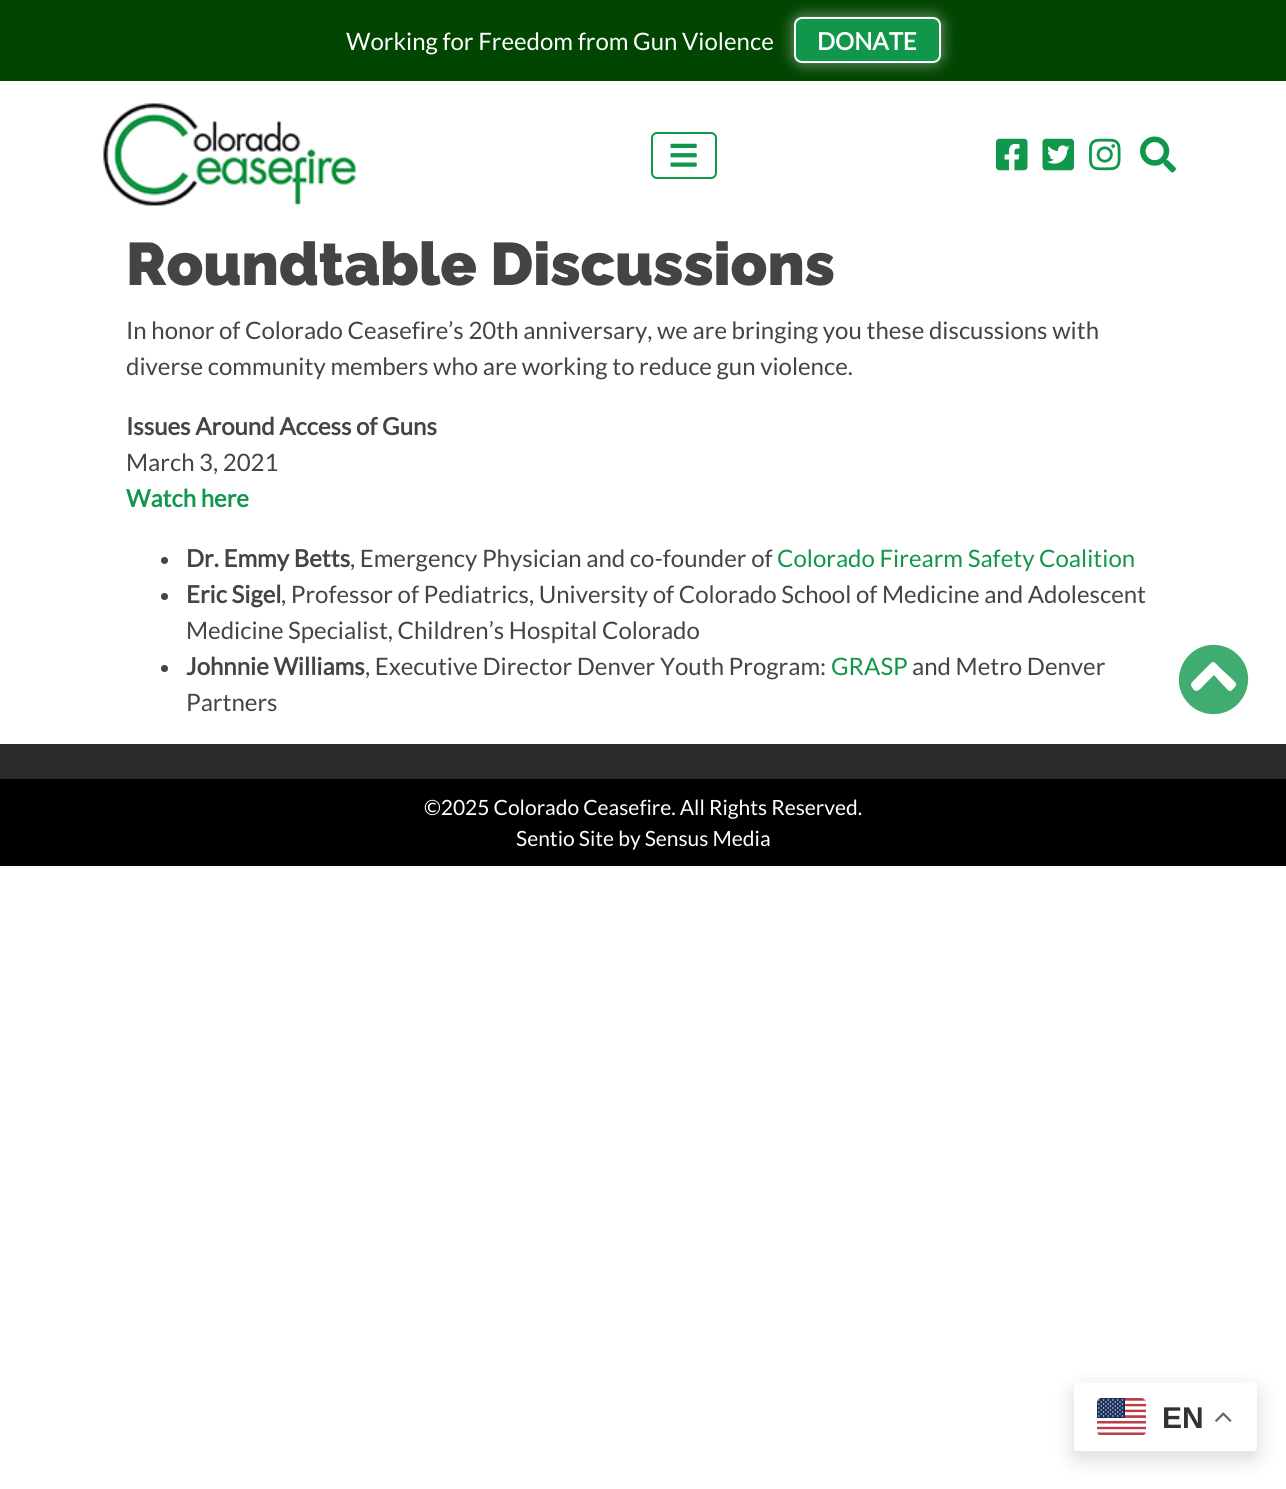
#include <cairo/cairo.h>
#include <math.h>
#include <stddef.h>

static cairo_t *cr;

static void rgb(unsigned color)
{
	cairo_set_source_rgb(cr, (color >> 16) / 255.0, (color >> 8 & 255) / 255.0, (color & 255) / 255.0);
}

static void rrect(double x, double y, double w, double h, double r)
{
	cairo_new_sub_path(cr);
	cairo_arc(cr, x + w - r, y + h - r, r, 0, M_PI / 2);
	cairo_arc(cr, x + r, y + h - r, r, M_PI / 2, M_PI);
	cairo_arc(cr, x + r, y + r, r, M_PI, 1.5 * M_PI);
	cairo_arc(cr, x + w - r, y + r, r, 1.5 * M_PI, 2 * M_PI);
	cairo_close_path(cr);
}

static void soft_shadow(double x, double y, double w, double h, double r, double blur, double alpha)
{
	cairo_push_group_with_content(cr, CAIRO_CONTENT_ALPHA);
	cairo_set_operator(cr, CAIRO_OPERATOR_SOURCE);
	for (int i = 15; i >= -15 && fmin(w, h) + blur * i / 3 > 0; i -= 2) {
		double e = blur * i / 6;
		cairo_set_source_rgba(cr, 0, 0, 0, alpha * erfc((i - 1) / 8.5) / 2);
		rrect(x - e, y - e, w + 2 * e, h + 2 * e, fmax(0, fmin(r + e + blur * .6, fmin(w, h) / 2 + e)));
		cairo_fill(cr);
	}
	cairo_pattern_t *soft = cairo_pop_group(cr);
	cairo_mask(cr, soft);
	cairo_pattern_destroy(soft);
}

static void image(const char *path, double x, double y, double w, double h)
{
	cairo_surface_t *image = cairo_image_surface_create_from_png(path);
	cairo_save(cr);
	cairo_set_source_surface(cr, image, x, y);
	cairo_rectangle(cr, x, y, w, h);
	cairo_fill(cr);
	cairo_restore(cr);
	cairo_surface_destroy(image);
}

int main(void) {
	cairo_surface_t *surface = cairo_image_surface_create(CAIRO_FORMAT_RGB24, 1286, 1489);
	cr = cairo_create(surface);
	cairo_font_options_t *options = cairo_font_options_create();
	cairo_font_options_set_hint_metrics(options, CAIRO_HINT_METRICS_OFF);
	cairo_font_options_set_hint_style(options, CAIRO_HINT_STYLE_NONE);
	cairo_set_font_options(cr, options);
	cairo_set_miter_limit(cr, 4);
	rgb(0xffffff);
	cairo_paint(cr);
	rgb(0x004500);
	cairo_rectangle(cr, 0, 0, 1286, 81);
	cairo_fill(cr);
	rgb(0xffffff);
	soft_shadow(794, 17, 147, 46, 8, 7.5, 0.5);
	rgb(0x10974b);
	rrect(795, 18, 145, 44, 7);
	cairo_fill_preserve(cr);
	rgb(0xffffff);
	cairo_stroke(cr);
	image("img/1.png", 103, 103, 253, 103);
	rrect(652, 133, 64, 45, 5);
	rgb(0x10974b);
	cairo_stroke(cr);
	image("img/2.png", 670, 143, 27, 24);
	image("img/3.png", 996, 138, 32, 33);
	image("img/4.png", 1042, 138, 32, 33);
	image("img/5.png", 1089, 138, 32, 33);
	image("img/6.png", 1140, 136, 36, 37);
	rgb(0x444444);
	cairo_arc(cr, 164.5, 560.5, 3.5, 0, 2 * M_PI);
	cairo_fill(cr);
	cairo_arc(cr, 164.5, 596.5, 3.5, 0, 2 * M_PI);
	cairo_fill(cr);
	cairo_arc(cr, 164.5, 668.5, 3.5, 0, 2 * M_PI);
	cairo_fill(cr);
	rgb(0x40ac6f);
	cairo_new_path(cr);
	cairo_move_to(cr, 1189, 704);
	cairo_curve_to(cr, 1166, 681, 1185, 642, 1217, 645);
	cairo_curve_to(cr, 1225, 646, 1232, 649, 1238, 655);
	cairo_curve_to(cr, 1261, 678, 1242, 717, 1210, 714);
	cairo_curve_to(cr, 1202, 713, 1195, 710, 1189, 704);
	cairo_close_path(cr);
	cairo_move_to(cr, 1211, 663);
	cairo_line_to(cr, 1198, 676);
	cairo_curve_to(cr, 1192, 683, 1188, 683, 1194, 690);
	cairo_curve_to(cr, 1198, 693, 1202, 687, 1204, 685);
	cairo_line_to(cr, 1214, 675);
	cairo_line_to(cr, 1223, 685);
	cairo_curve_to(cr, 1225, 686, 1228, 692, 1231, 691);
	cairo_line_to(cr, 1234, 688);
	cairo_curve_to(cr, 1238, 684, 1236, 683, 1232, 679);
	cairo_line_to(cr, 1219, 667);
	cairo_curve_to(cr, 1217, 665, 1214, 660, 1211, 663);
	cairo_close_path(cr);
	cairo_fill(cr);
	rgb(0x2a2a2a);
	cairo_rectangle(cr, 0, 744, 1286, 35);
	cairo_fill(cr);
	rgb(0x000000);
	cairo_rectangle(cr, 0, 779, 1286, 87);
	cairo_fill(cr);
	rgb(0x000000);
	soft_shadow(1074, 1391, 183, 67, 3, 11, 0.15);
	rgb(0xffffff);
	rrect(1074, 1383, 183, 68, 3);
	cairo_fill(cr);
	image("img/7.png", 1097, 1398, 49, 37);
	image("img/8.png", 1215, 1412, 17, 10);
	cairo_select_font_face(cr, "Lato", CAIRO_FONT_SLANT_NORMAL, CAIRO_FONT_WEIGHT_NORMAL);
	cairo_set_font_size(cr, 24);
	cairo_move_to(cr, 346, 50);
	cairo_show_text(cr, "Working for Freedom from Gun Violence");
	cairo_select_font_face(cr, "Lato", CAIRO_FONT_SLANT_NORMAL, CAIRO_FONT_WEIGHT_BOLD);
	cairo_move_to(cr, 817, 50);
	cairo_show_text(cr, "DONATE");
	cairo_select_font_face(cr, "Raleway Thin", CAIRO_FONT_SLANT_NORMAL, CAIRO_FONT_WEIGHT_NORMAL);
	cairo_set_font_size(cr, 60);
	rgb(0x444444);
	cairo_move_to(cr, 126, 285);
	cairo_show_text(cr, "Roundtable Discussions");
	cairo_select_font_face(cr, "Lato", CAIRO_FONT_SLANT_NORMAL, CAIRO_FONT_WEIGHT_NORMAL);
	cairo_set_font_size(cr, 24);
	cairo_move_to(cr, 126, 339);
	cairo_show_text(cr, "In honor of Colorado Ceasefire’s 20th anniversary, we are bringing you these discussions with");
	cairo_move_to(cr, 126, 375);
	cairo_show_text(cr, "diverse community members who are working to reduce gun violence.");
	cairo_select_font_face(cr, "Lato", CAIRO_FONT_SLANT_NORMAL, CAIRO_FONT_WEIGHT_BOLD);
	cairo_move_to(cr, 126, 435);
	cairo_show_text(cr, "Issues Around Access of Guns");
	cairo_select_font_face(cr, "Lato", CAIRO_FONT_SLANT_NORMAL, CAIRO_FONT_WEIGHT_NORMAL);
	cairo_move_to(cr, 126, 471);
	cairo_show_text(cr, "March 3, 2021");
	cairo_select_font_face(cr, "Lato", CAIRO_FONT_SLANT_NORMAL, CAIRO_FONT_WEIGHT_BOLD);
	rgb(0x10974b);
	cairo_move_to(cr, 126, 507);
	cairo_show_text(cr, "Watch here");
	rgb(0x444444);
	cairo_move_to(cr, 186, 567);
	cairo_show_text(cr, "Dr. Emmy Betts");
	cairo_select_font_face(cr, "Lato", CAIRO_FONT_SLANT_NORMAL, CAIRO_FONT_WEIGHT_NORMAL);
	cairo_move_to(cr, 350, 567);
	cairo_show_text(cr, ", Emergency Physician and co-founder of");
	rgb(0x10974b);
	cairo_move_to(cr, 777, 567);
	cairo_show_text(cr, "Colorado Firearm Safety Coalition");
	cairo_select_font_face(cr, "Lato", CAIRO_FONT_SLANT_NORMAL, CAIRO_FONT_WEIGHT_BOLD);
	rgb(0x444444);
	cairo_move_to(cr, 186, 603);
	cairo_show_text(cr, "Eric Sigel");
	cairo_select_font_face(cr, "Lato", CAIRO_FONT_SLANT_NORMAL, CAIRO_FONT_WEIGHT_NORMAL);
	cairo_move_to(cr, 281, 603);
	cairo_show_text(cr, ", Professor of Pediatrics, University of Colorado School of Medicine and Adolescent");
	cairo_move_to(cr, 186, 639);
	cairo_show_text(cr, "Medicine Specialist, Children’s Hospital Colorado");
	cairo_select_font_face(cr, "Lato", CAIRO_FONT_SLANT_NORMAL, CAIRO_FONT_WEIGHT_BOLD);
	cairo_move_to(cr, 186, 675);
	cairo_show_text(cr, "Johnnie Williams");
	cairo_select_font_face(cr, "Lato", CAIRO_FONT_SLANT_NORMAL, CAIRO_FONT_WEIGHT_NORMAL);
	cairo_move_to(cr, 365, 675);
	cairo_show_text(cr, ", Executive Director Denver Youth Program:");
	rgb(0x10974b);
	cairo_move_to(cr, 831, 675);
	cairo_show_text(cr, "GRASP");
	rgb(0x444444);
	cairo_move_to(cr, 912, 675);
	cairo_show_text(cr, "and Metro Denver");
	cairo_move_to(cr, 186, 711);
	cairo_show_text(cr, "Partners");
	cairo_set_font_size(cr, 21);
	rgb(0xffffff);
	cairo_move_to(cr, 424, 815);
	cairo_show_text(cr, "©2025 Colorado Ceasefire. All Rights Reserved.");
	cairo_move_to(cr, 516, 846);
	cairo_show_text(cr, "Sentio Site by Sensus Media");
	cairo_select_font_face(cr, "Liberation Sans", CAIRO_FONT_SLANT_NORMAL, CAIRO_FONT_WEIGHT_BOLD);
	cairo_set_font_size(cr, 30);
	rgb(0x333333);
	cairo_move_to(cr, 1162, 1428);
	cairo_show_text(cr, "EN");
	cairo_surface_write_to_png(surface, "page.png");
	cairo_font_options_destroy(options);
	cairo_destroy(cr);
	cairo_surface_destroy(surface);
	return 0;
}
